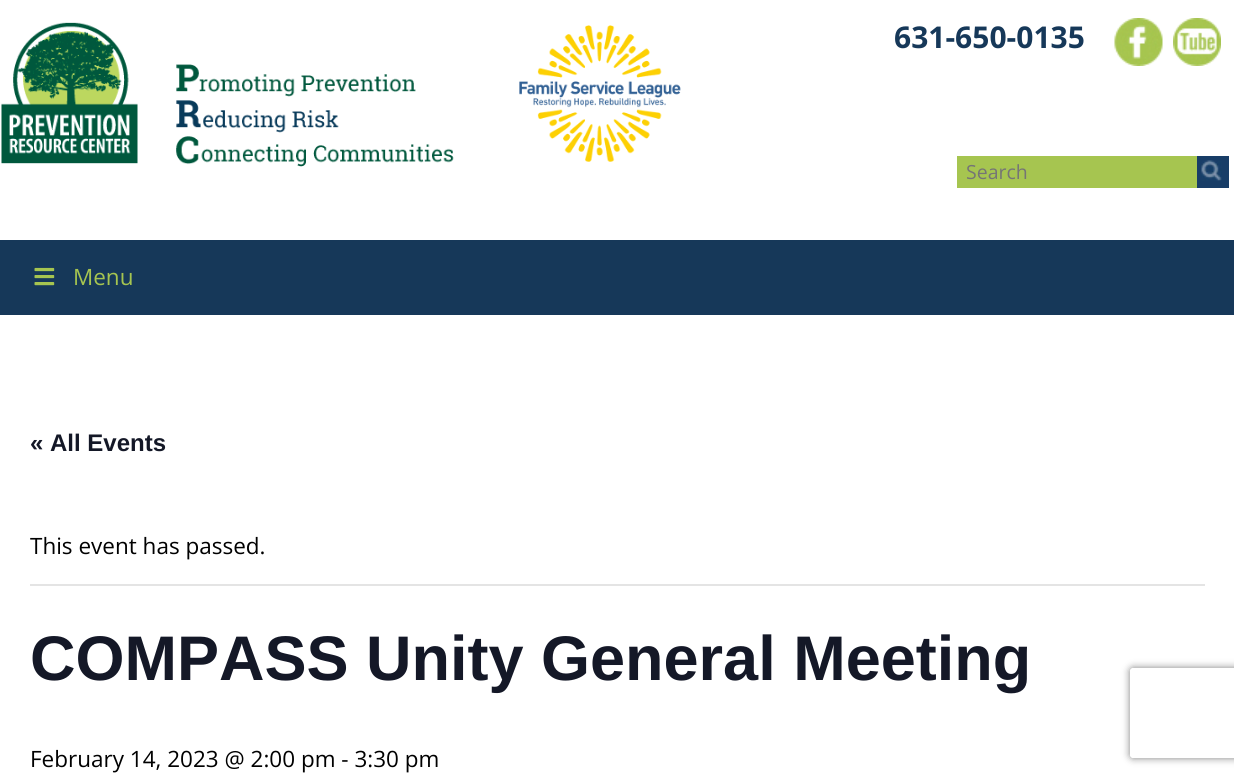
#include <cairo/cairo.h>
#include <math.h>
#include <stddef.h>

static cairo_t *cr;

static void rgb(unsigned color)
{
	cairo_set_source_rgb(cr, (color >> 16) / 255.0, (color >> 8 & 255) / 255.0, (color & 255) / 255.0);
}

static void rrect(double x, double y, double w, double h, double r)
{
	cairo_new_sub_path(cr);
	cairo_arc(cr, x + w - r, y + h - r, r, 0, M_PI / 2);
	cairo_arc(cr, x + r, y + h - r, r, M_PI / 2, M_PI);
	cairo_arc(cr, x + r, y + r, r, M_PI, 1.5 * M_PI);
	cairo_arc(cr, x + w - r, y + r, r, 1.5 * M_PI, 2 * M_PI);
	cairo_close_path(cr);
}

static void soft_shadow(double x, double y, double w, double h, double r, double blur, double alpha)
{
	cairo_push_group_with_content(cr, CAIRO_CONTENT_ALPHA);
	cairo_set_operator(cr, CAIRO_OPERATOR_SOURCE);
	for (int i = 15; i >= -15 && fmin(w, h) + blur * i / 3 > 0; i -= 2) {
		double e = blur * i / 6;
		cairo_set_source_rgba(cr, 0, 0, 0, alpha * erfc((i - 1) / 8.5) / 2);
		rrect(x - e, y - e, w + 2 * e, h + 2 * e, fmax(0, fmin(r + e + blur * .6, fmin(w, h) / 2 + e)));
		cairo_fill(cr);
	}
	cairo_pattern_t *soft = cairo_pop_group(cr);
	cairo_mask(cr, soft);
	cairo_pattern_destroy(soft);
}

static void image(const char *path, double x, double y, double w, double h)
{
	cairo_surface_t *image = cairo_image_surface_create_from_png(path);
	cairo_save(cr);
	cairo_set_source_surface(cr, image, x, y);
	cairo_rectangle(cr, x, y, w, h);
	cairo_fill(cr);
	cairo_restore(cr);
	cairo_surface_destroy(image);
}

int main(void) {
	cairo_surface_t *surface = cairo_image_surface_create(CAIRO_FORMAT_RGB24, 1234, 778);
	cr = cairo_create(surface);
	cairo_font_options_t *options = cairo_font_options_create();
	cairo_font_options_set_hint_metrics(options, CAIRO_HINT_METRICS_OFF);
	cairo_font_options_set_hint_style(options, CAIRO_HINT_STYLE_NONE);
	cairo_set_font_options(cr, options);
	cairo_set_miter_limit(cr, 4);
	rgb(0xffffff);
	cairo_paint(cr);
	image("img/1.png", 1, 22, 453, 145);
	image("img/2.png", 519, 25, 162, 137);
	image("img/3.png", 1114, 18, 49, 48);
	image("img/4.png", 1173, 18, 48, 48);
	rgb(0xa6c550);
	cairo_rectangle(cr, 957, 156, 240, 32);
	cairo_fill(cr);
	rgb(0x183d67);
	cairo_rectangle(cr, 1197, 156, 32, 32);
	cairo_fill(cr);
	image("img/5.png", 1201, 160, 21, 21);
	rgb(0x163859);
	cairo_rectangle(cr, 0, 240, 1234, 75);
	cairo_fill(cr);
	image("img/6.png", 34, 267, 21, 19);
	rgb(0xe4e4e4);
	cairo_rectangle(cr, 30, 584, 1175, 2);
	cairo_fill(cr);
	cairo_save(cr);
	cairo_set_fill_rule(cr, CAIRO_FILL_RULE_EVEN_ODD);
	cairo_new_path(cr);
	cairo_move_to(cr, 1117, 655);
	cairo_line_to(cr, 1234, 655);
	cairo_line_to(cr, 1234, 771);
	cairo_line_to(cr, 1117, 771);
	cairo_close_path(cr);
	cairo_move_to(cr, 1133, 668);
	cairo_line_to(cr, 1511, 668);
	cairo_curve_to(cr, 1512.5, 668, 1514, 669.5, 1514, 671);
	cairo_line_to(cr, 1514, 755);
	cairo_curve_to(cr, 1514, 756.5, 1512.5, 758, 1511, 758);
	cairo_line_to(cr, 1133, 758);
	cairo_curve_to(cr, 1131.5, 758, 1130, 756.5, 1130, 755);
	cairo_line_to(cr, 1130, 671);
	cairo_curve_to(cr, 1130, 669.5, 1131.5, 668, 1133, 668);
	cairo_close_path(cr);
	cairo_clip(cr);
	rgb(0x808080);
	soft_shadow(1130, 668, 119, 90, 3, 4, 1);
	cairo_restore(cr);
	cairo_select_font_face(cr, "Open Sans", CAIRO_FONT_SLANT_NORMAL, CAIRO_FONT_WEIGHT_BOLD);
	cairo_set_font_size(cr, 30);
	rgb(0x163859);
	cairo_move_to(cr, 894, 48);
	cairo_show_text(cr, "631-650-0135");
	cairo_select_font_face(cr, "Open Sans", CAIRO_FONT_SLANT_NORMAL, CAIRO_FONT_WEIGHT_NORMAL);
	cairo_set_font_size(cr, 19.5);
	rgb(0x757575);
	cairo_move_to(cr, 966, 179);
	cairo_show_text(cr, "Search");
	cairo_set_font_size(cr, 22.5);
	rgb(0xa6c550);
	cairo_move_to(cr, 73, 285);
	cairo_show_text(cr, "Menu");
	cairo_select_font_face(cr, "Liberation Sans", CAIRO_FONT_SLANT_NORMAL, CAIRO_FONT_WEIGHT_BOLD);
	cairo_set_font_size(cr, 24);
	rgb(0x141827);
	cairo_move_to(cr, 30, 451);
	cairo_show_text(cr, "« All Events");
	cairo_select_font_face(cr, "Open Sans", CAIRO_FONT_SLANT_NORMAL, CAIRO_FONT_WEIGHT_NORMAL);
	cairo_set_font_size(cr, 22.5);
	rgb(0x000000);
	cairo_move_to(cr, 30, 554);
	cairo_show_text(cr, "This event has passed.");
	cairo_select_font_face(cr, "Liberation Sans", CAIRO_FONT_SLANT_NORMAL, CAIRO_FONT_WEIGHT_BOLD);
	cairo_set_font_size(cr, 63);
	rgb(0x141827);
	cairo_move_to(cr, 30, 680);
	cairo_show_text(cr, "COMPASS Unity General Meeting");
	cairo_select_font_face(cr, "Open Sans", CAIRO_FONT_SLANT_NORMAL, CAIRO_FONT_WEIGHT_NORMAL);
	cairo_set_font_size(cr, 22.5);
	rgb(0x000000);
	cairo_move_to(cr, 30, 767);
	cairo_show_text(cr, "February 14, 2023 @ 2:00 pm - 3:30 pm");
	cairo_surface_write_to_png(surface, "page.png");
	cairo_font_options_destroy(options);
	cairo_destroy(cr);
	cairo_surface_destroy(surface);
	return 0;
}
